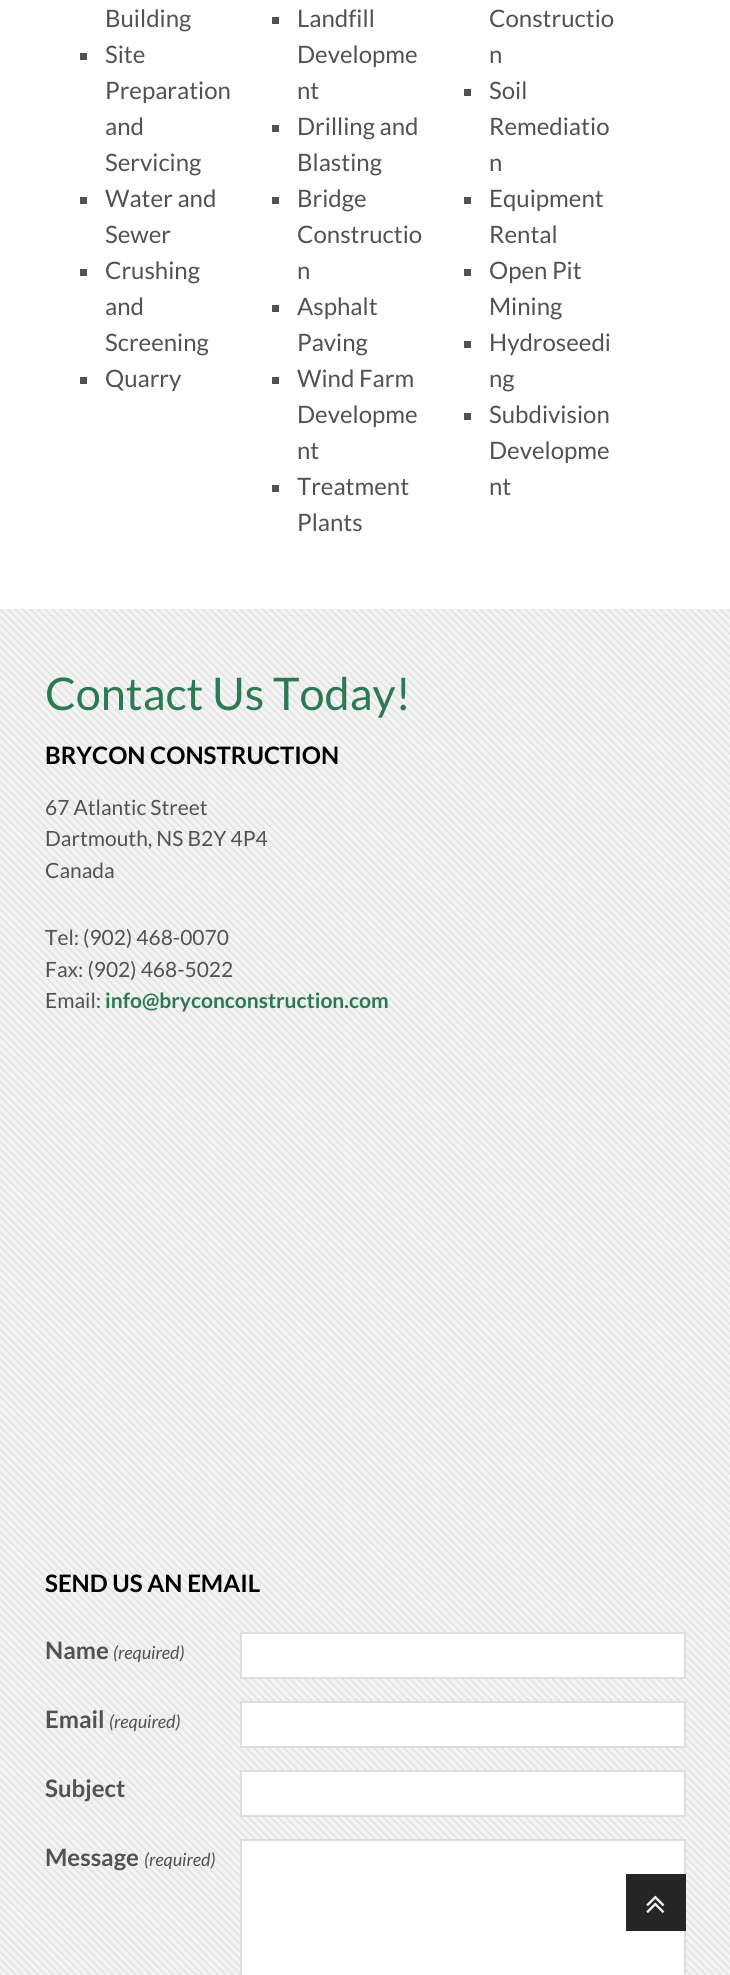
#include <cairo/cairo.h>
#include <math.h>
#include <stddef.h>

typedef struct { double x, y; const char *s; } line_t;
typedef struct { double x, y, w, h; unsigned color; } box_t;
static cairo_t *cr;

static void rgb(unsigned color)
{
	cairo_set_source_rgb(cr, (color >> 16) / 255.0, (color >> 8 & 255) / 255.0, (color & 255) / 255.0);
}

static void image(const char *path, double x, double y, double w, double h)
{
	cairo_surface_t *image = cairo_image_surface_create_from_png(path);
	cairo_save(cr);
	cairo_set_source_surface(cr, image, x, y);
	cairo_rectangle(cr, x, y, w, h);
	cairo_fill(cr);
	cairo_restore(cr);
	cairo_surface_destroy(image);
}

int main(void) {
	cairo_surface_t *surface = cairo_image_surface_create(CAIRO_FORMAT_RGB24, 730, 1975);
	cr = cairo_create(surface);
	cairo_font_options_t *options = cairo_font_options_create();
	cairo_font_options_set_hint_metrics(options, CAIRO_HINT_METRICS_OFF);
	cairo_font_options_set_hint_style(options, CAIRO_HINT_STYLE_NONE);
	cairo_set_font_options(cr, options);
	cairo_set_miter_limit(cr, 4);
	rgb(0xffffff);
	cairo_paint(cr);
	{
		static const box_t items[] = {
			{80, 53, 7, 7, 0x525252},
			{80, 197, 7, 7, 0x525252},
			{80, 269, 7, 7, 0x525252},
			{80, 377, 7, 7, 0x525252},
			{272, 17, 7, 7, 0x525252},
			{272, 125, 7, 7, 0x525252},
			{272, 197, 7, 7, 0x525252},
			{272, 305, 7, 7, 0x525252},
			{272, 377, 7, 7, 0x525252},
			{272, 485, 7, 7, 0x525252},
			{464, 89, 7, 7, 0x525252},
			{464, 197, 7, 7, 0x525252},
			{464, 269, 7, 7, 0x525252},
			{464, 341, 7, 7, 0x525252},
			{464, 413, 7, 7, 0x525252},
		};
		for (size_t i = 0; i < sizeof items / sizeof *items; i++) {
			rgb(items[i].color);
			cairo_rectangle(cr, items[i].x, items[i].y, items[i].w, items[i].h);
			cairo_fill(cr);
		}
	}
	image("img/1.png", 0, 609, 730, 1366);
	rgb(0xffffff);
	cairo_rectangle(cr, 241, 1633, 444, 45);
	cairo_fill_preserve(cr);
	rgb(0xdedede);
	cairo_stroke(cr);
	rgb(0xffffff);
	cairo_rectangle(cr, 241, 1702, 444, 45);
	cairo_fill_preserve(cr);
	rgb(0xdedede);
	cairo_stroke(cr);
	rgb(0xffffff);
	cairo_rectangle(cr, 241, 1771, 444, 45);
	cairo_fill_preserve(cr);
	rgb(0xdedede);
	cairo_stroke(cr);
	rgb(0xffffff);
	cairo_rectangle(cr, 241, 1840, 444, 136);
	cairo_fill_preserve(cr);
	rgb(0xdedede);
	cairo_stroke(cr);
	rgb(0x252525);
	cairo_rectangle(cr, 626, 1874, 60, 57);
	cairo_fill(cr);
	image("img/2.png", 646, 1895, 19, 18);
	cairo_select_font_face(cr, "Lato", CAIRO_FONT_SLANT_NORMAL, CAIRO_FONT_WEIGHT_NORMAL);
	cairo_set_font_size(cr, 24);
	rgb(0x525252);
	{
		static const line_t items[] = {
			{105, 27, "Building"},
			{105, 63, "Site"},
			{105, 99, "Preparation"},
			{105, 135, "and"},
			{105, 171, "Servicing"},
			{105, 207, "Water and"},
			{105, 243, "Sewer"},
			{105, 279, "Crushing"},
			{105, 315, "and"},
			{105, 351, "Screening"},
			{105, 387, "Quarry"},
			{297, 27, "Landfill"},
			{297, 63, "Developme"},
			{297, 99, "nt"},
			{297, 135, "Drilling and"},
			{297, 171, "Blasting"},
			{297, 207, "Bridge"},
			{297, 243, "Constructio"},
			{297, 279, "n"},
			{297, 315, "Asphalt"},
			{297, 351, "Paving"},
			{297, 387, "Wind Farm"},
			{297, 423, "Developme"},
			{297, 459, "nt"},
			{297, 495, "Treatment"},
			{297, 531, "Plants"},
			{489, 27, "Constructio"},
			{489, 63, "n"},
			{489, 99, "Soil"},
			{489, 135, "Remediatio"},
			{489, 171, "n"},
			{489, 207, "Equipment"},
			{489, 243, "Rental"},
			{489, 279, "Open Pit"},
			{489, 315, "Mining"},
			{489, 351, "Hydroseedi"},
			{489, 387, "ng"},
			{489, 423, "Subdivision"},
			{489, 459, "Developme"},
			{489, 495, "nt"},
		};
		for (size_t i = 0; i < sizeof items / sizeof *items; i++) {
			cairo_move_to(cr, items[i].x, items[i].y);
			cairo_show_text(cr, items[i].s);
		}
	}
	cairo_set_font_size(cr, 45);
	rgb(0x2b7a52);
	cairo_move_to(cr, 45, 710);
	cairo_show_text(cr, "Contact Us Today!");
	cairo_select_font_face(cr, "Lato", CAIRO_FONT_SLANT_NORMAL, CAIRO_FONT_WEIGHT_BOLD);
	cairo_set_font_size(cr, 24);
	rgb(0x000000);
	cairo_move_to(cr, 45, 764);
	cairo_show_text(cr, "BRYCON CONSTRUCTION");
	cairo_select_font_face(cr, "Lato", CAIRO_FONT_SLANT_NORMAL, CAIRO_FONT_WEIGHT_NORMAL);
	cairo_set_font_size(cr, 21);
	rgb(0x525252);
	{
		static const line_t items[] = {
			{45, 815, "67 Atlantic Street"},
			{45, 846, "Dartmouth, NS B2Y 4P4"},
			{45, 878, "Canada"},
			{45, 945, "Tel: (902) 468-0070"},
			{45, 977, "Fax: (902) 468-5022"},
			{45, 1008, "Email:"},
		};
		for (size_t i = 0; i < sizeof items / sizeof *items; i++) {
			cairo_move_to(cr, items[i].x, items[i].y);
			cairo_show_text(cr, items[i].s);
		}
	}
	cairo_select_font_face(cr, "Lato", CAIRO_FONT_SLANT_NORMAL, CAIRO_FONT_WEIGHT_BOLD);
	rgb(0x2b7a52);
	cairo_move_to(cr, 105, 1008);
	cairo_show_text(cr, "info@bryconconstruction.com");
	cairo_set_font_size(cr, 24);
	rgb(0x000000);
	cairo_move_to(cr, 45, 1592);
	cairo_show_text(cr, "SEND US AN EMAIL");
	rgb(0x525252);
	cairo_move_to(cr, 45, 1659);
	cairo_show_text(cr, "Name");
	cairo_select_font_face(cr, "Lato", CAIRO_FONT_SLANT_ITALIC, CAIRO_FONT_WEIGHT_NORMAL);
	cairo_set_font_size(cr, 18);
	cairo_move_to(cr, 113, 1659);
	cairo_show_text(cr, "(required)");
	cairo_select_font_face(cr, "Lato", CAIRO_FONT_SLANT_NORMAL, CAIRO_FONT_WEIGHT_BOLD);
	cairo_set_font_size(cr, 24);
	cairo_move_to(cr, 45, 1728);
	cairo_show_text(cr, "Email");
	cairo_select_font_face(cr, "Lato", CAIRO_FONT_SLANT_ITALIC, CAIRO_FONT_WEIGHT_NORMAL);
	cairo_set_font_size(cr, 18);
	cairo_move_to(cr, 109, 1728);
	cairo_show_text(cr, "(required)");
	cairo_select_font_face(cr, "Lato", CAIRO_FONT_SLANT_NORMAL, CAIRO_FONT_WEIGHT_BOLD);
	cairo_set_font_size(cr, 24);
	cairo_move_to(cr, 45, 1797);
	cairo_show_text(cr, "Subject");
	cairo_move_to(cr, 45, 1866);
	cairo_show_text(cr, "Message");
	cairo_select_font_face(cr, "Lato", CAIRO_FONT_SLANT_ITALIC, CAIRO_FONT_WEIGHT_NORMAL);
	cairo_set_font_size(cr, 18);
	cairo_move_to(cr, 144, 1866);
	cairo_show_text(cr, "(required)");
	cairo_surface_write_to_png(surface, "page.png");
	cairo_font_options_destroy(options);
	cairo_destroy(cr);
	cairo_surface_destroy(surface);
	return 0;
}
